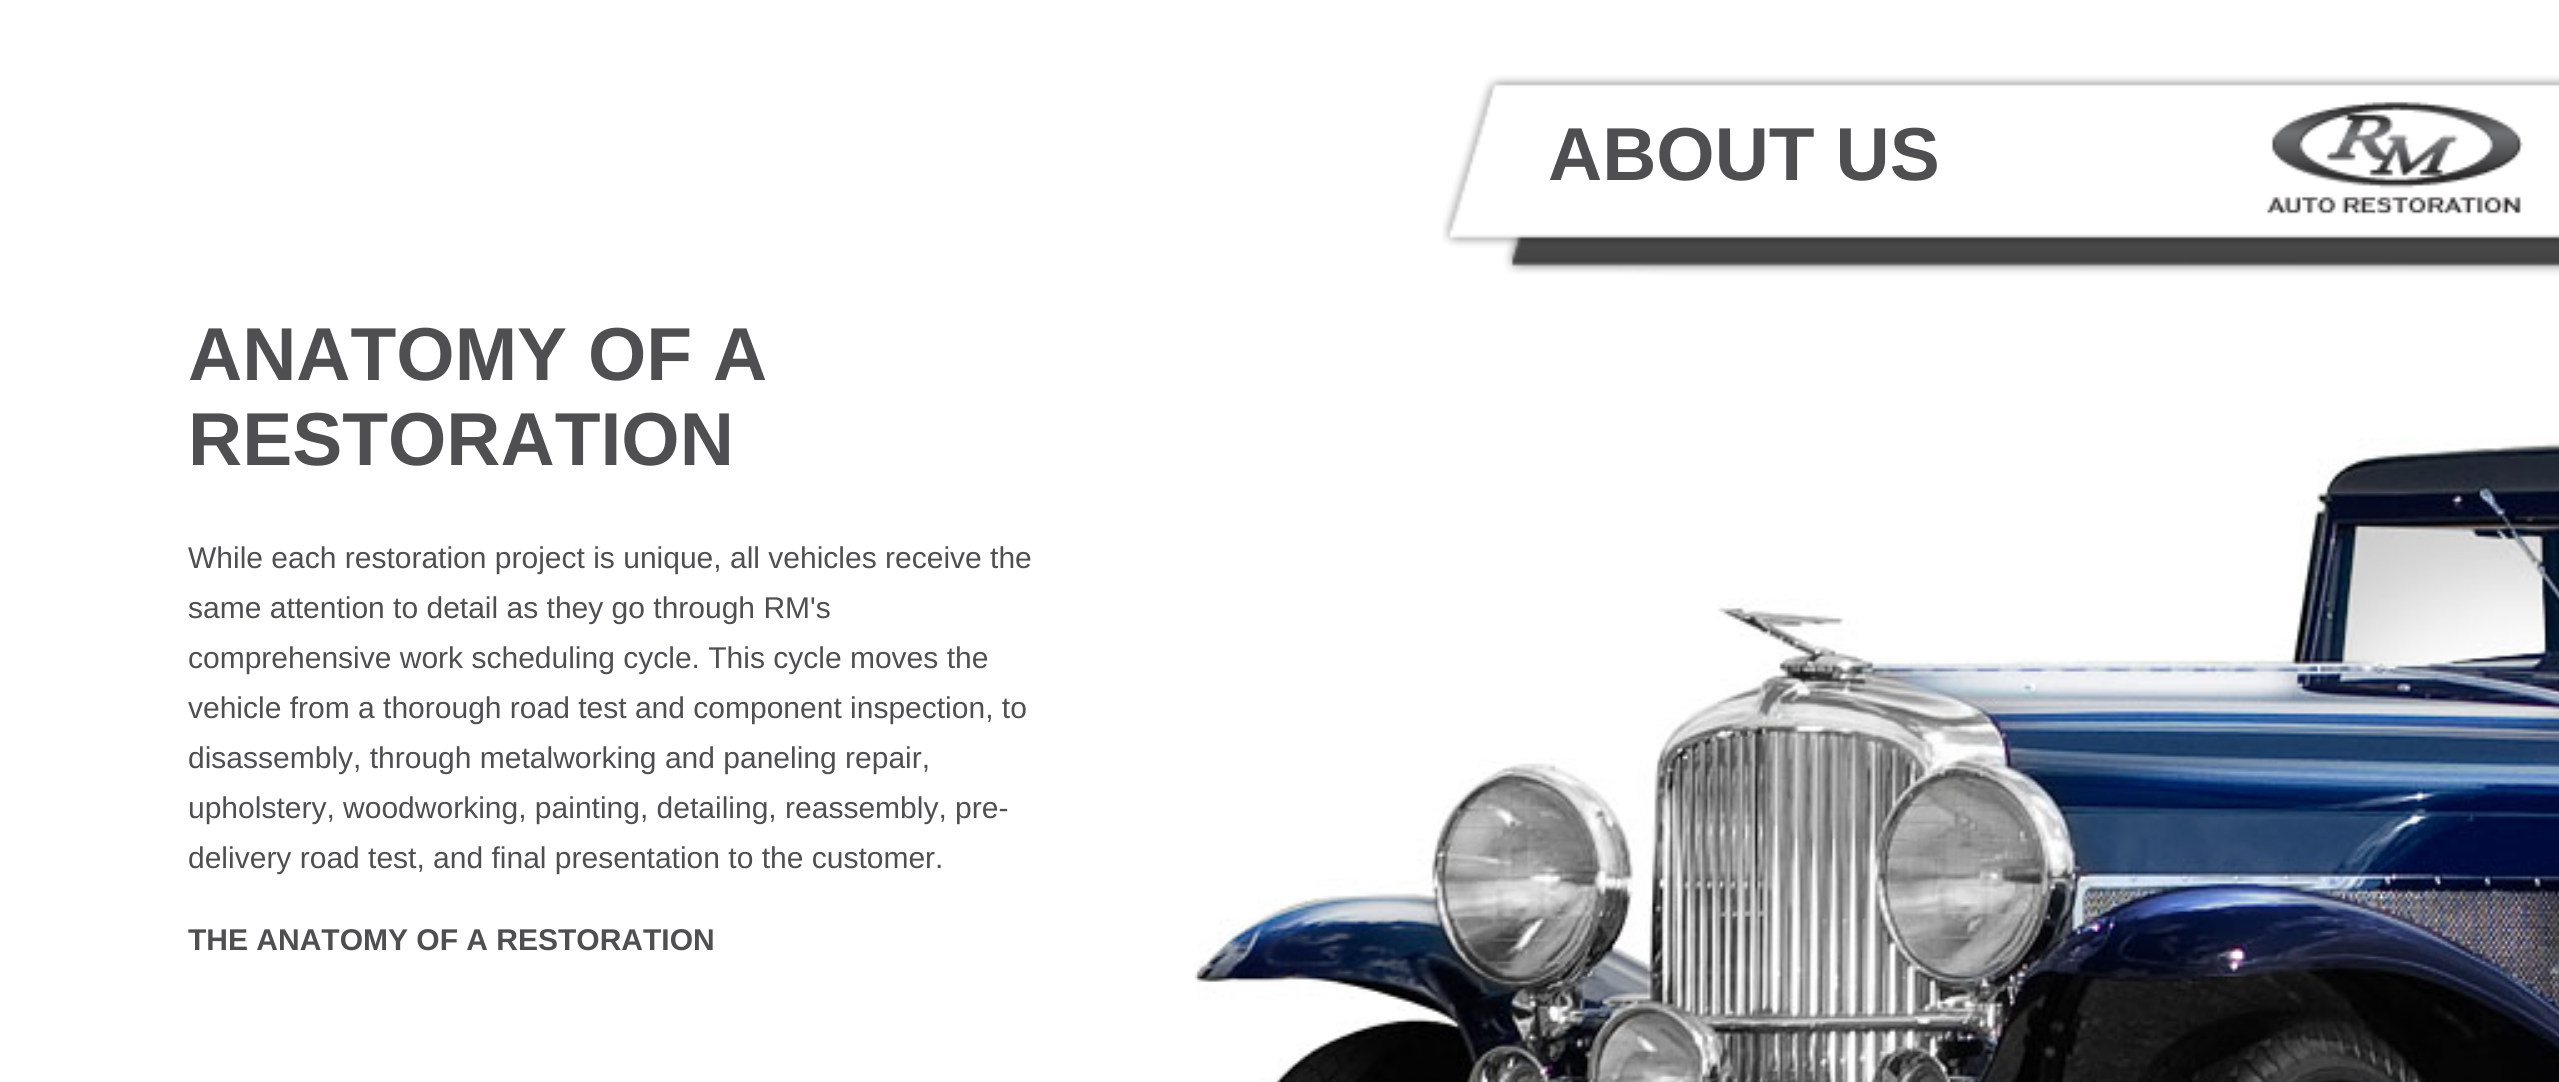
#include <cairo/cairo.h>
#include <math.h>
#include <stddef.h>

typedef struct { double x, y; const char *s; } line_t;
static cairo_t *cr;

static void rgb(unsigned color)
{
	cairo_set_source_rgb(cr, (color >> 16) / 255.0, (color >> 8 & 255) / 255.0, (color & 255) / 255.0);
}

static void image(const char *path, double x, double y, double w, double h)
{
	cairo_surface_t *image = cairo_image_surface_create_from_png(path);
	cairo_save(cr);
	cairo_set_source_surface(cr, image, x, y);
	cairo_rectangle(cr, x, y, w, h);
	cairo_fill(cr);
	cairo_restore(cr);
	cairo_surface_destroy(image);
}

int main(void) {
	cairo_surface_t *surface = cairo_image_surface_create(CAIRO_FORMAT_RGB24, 2559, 1082);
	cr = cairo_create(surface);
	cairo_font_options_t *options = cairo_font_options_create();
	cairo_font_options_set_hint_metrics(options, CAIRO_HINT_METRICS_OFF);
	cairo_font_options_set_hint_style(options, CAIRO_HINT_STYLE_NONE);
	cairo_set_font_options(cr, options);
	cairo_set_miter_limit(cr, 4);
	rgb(0xffffff);
	cairo_paint(cr);
	image("img/3.png", 1194, 262, 1365, 820);
	image("img/1.png", 1442, 75, 1117, 200);
	image("img/2.png", 2266, 101, 258, 114);
	cairo_select_font_face(cr, "Liberation Sans", CAIRO_FONT_SLANT_NORMAL, CAIRO_FONT_WEIGHT_BOLD);
	cairo_set_font_size(cr, 75);
	rgb(0x4f4f51);
	{
		static const line_t items[] = {
			{1548, 180, "ABOUT US"},
			{188, 380, "ANATOMY OF A"},
			{188, 465, "RESTORATION"},
		};
		for (size_t i = 0; i < sizeof items / sizeof *items; i++) {
			cairo_move_to(cr, items[i].x, items[i].y);
			cairo_show_text(cr, items[i].s);
		}
	}
	cairo_select_font_face(cr, "Liberation Sans", CAIRO_FONT_SLANT_NORMAL, CAIRO_FONT_WEIGHT_NORMAL);
	cairo_set_font_size(cr, 30);
	{
		static const line_t items[] = {
			{188, 568, "While each restoration project is unique, all vehicles receive the"},
			{188, 618, "same attention to detail as they go through RM's"},
			{188, 668, "comprehensive work scheduling cycle. This cycle moves the"},
			{188, 718, "vehicle from a thorough road test and component inspection, to"},
			{188, 768, "disassembly, through metalworking and paneling repair,"},
			{188, 818, "upholstery, woodworking, painting, detailing, reassembly, pre-"},
			{188, 868, "delivery road test, and final presentation to the customer."},
		};
		for (size_t i = 0; i < sizeof items / sizeof *items; i++) {
			cairo_move_to(cr, items[i].x, items[i].y);
			cairo_show_text(cr, items[i].s);
		}
	}
	cairo_save(cr);
	cairo_rectangle(cr, 188, 313, 850, 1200);
	cairo_clip(cr);
	cairo_select_font_face(cr, "Liberation Sans", CAIRO_FONT_SLANT_NORMAL, CAIRO_FONT_WEIGHT_BOLD);
	cairo_move_to(cr, 188, 950);
	cairo_show_text(cr, "THE ANATOMY OF A RESTORATION");
	cairo_restore(cr);
	cairo_surface_write_to_png(surface, "page.png");
	cairo_font_options_destroy(options);
	cairo_destroy(cr);
	cairo_surface_destroy(surface);
	return 0;
}
